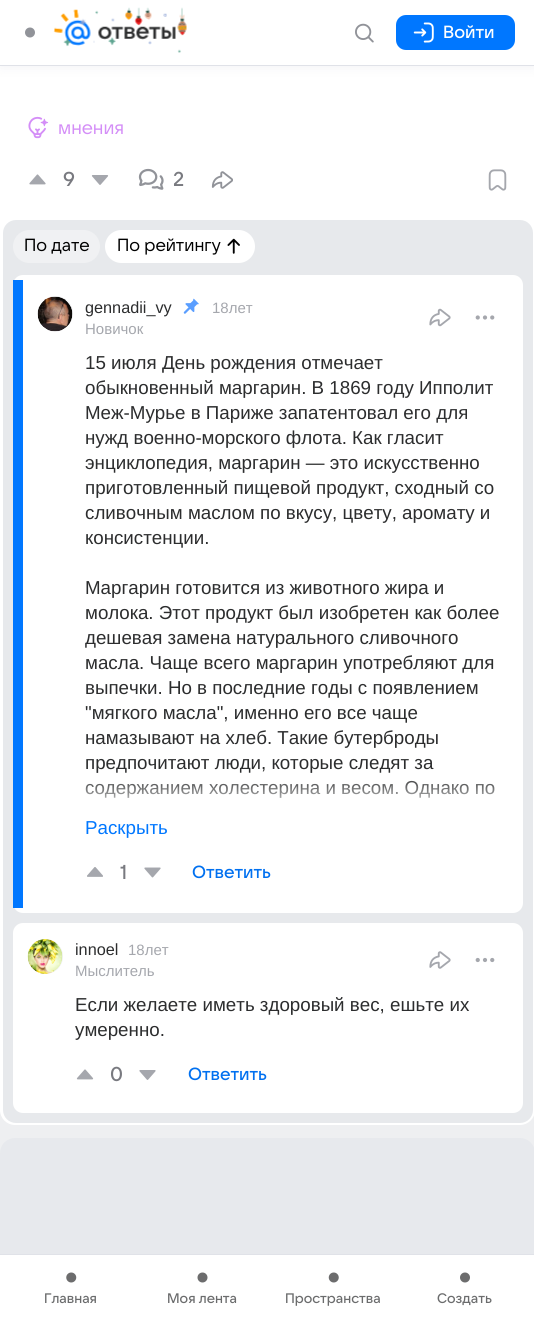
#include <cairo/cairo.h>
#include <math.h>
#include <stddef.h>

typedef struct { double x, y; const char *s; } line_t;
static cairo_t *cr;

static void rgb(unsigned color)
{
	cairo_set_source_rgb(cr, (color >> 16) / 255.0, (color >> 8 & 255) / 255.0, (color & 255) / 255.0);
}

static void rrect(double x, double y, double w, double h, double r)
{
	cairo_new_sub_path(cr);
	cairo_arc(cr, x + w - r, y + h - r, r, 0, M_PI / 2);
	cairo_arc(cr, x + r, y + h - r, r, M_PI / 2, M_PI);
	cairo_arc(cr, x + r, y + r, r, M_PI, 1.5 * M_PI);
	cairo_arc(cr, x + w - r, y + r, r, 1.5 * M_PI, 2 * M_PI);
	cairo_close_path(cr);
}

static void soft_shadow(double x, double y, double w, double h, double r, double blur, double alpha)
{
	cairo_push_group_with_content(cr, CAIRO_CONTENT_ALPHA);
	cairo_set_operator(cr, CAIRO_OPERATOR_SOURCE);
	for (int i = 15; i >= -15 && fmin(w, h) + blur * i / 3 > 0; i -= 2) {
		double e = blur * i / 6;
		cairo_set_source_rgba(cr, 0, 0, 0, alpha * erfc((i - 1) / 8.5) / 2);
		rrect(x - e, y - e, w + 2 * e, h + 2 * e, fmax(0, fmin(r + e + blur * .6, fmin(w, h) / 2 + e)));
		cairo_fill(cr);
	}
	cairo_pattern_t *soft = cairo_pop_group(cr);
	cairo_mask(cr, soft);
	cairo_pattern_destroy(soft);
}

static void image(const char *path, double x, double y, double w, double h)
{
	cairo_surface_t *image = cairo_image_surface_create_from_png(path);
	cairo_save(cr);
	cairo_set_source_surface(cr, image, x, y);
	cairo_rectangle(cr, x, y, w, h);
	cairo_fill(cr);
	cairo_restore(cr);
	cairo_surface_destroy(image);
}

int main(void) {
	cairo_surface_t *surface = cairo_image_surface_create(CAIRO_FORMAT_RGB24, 534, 1319);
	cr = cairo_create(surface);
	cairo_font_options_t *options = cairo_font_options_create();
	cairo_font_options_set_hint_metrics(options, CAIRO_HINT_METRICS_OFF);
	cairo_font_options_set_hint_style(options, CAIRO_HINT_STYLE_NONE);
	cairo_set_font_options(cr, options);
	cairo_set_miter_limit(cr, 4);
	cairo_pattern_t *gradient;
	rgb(0xeeeff1);
	cairo_paint(cr);
	rgb(0xffffff);
	rrect(0, -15, 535, 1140, 15);
	cairo_fill(cr);
	rgb(0x00103d);
	soft_shadow(0, 0, 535, 66, 0, 7.5, 0.06);
	rgb(0xffffff);
	cairo_rectangle(cr, 0, 0, 534, 65);
	cairo_fill(cr);
	rgb(0xe0e2e8);
	cairo_rectangle(cr, 0, 65, 534, 1);
	cairo_fill(cr);
	image("img/1.png", 25, 27, 10, 11);
	image("img/2.png", 53, 7, 134, 46);
	image("img/3.png", 355, 23, 19, 20);
	rgb(0x0077ff);
	rrect(396, 15, 119, 35, 10);
	cairo_fill(cr);
	image("img/4.png", 413, 22, 21, 21);
	image("img/5.png", 28, 116, 21, 23);
	image("img/6.png", 29, 174, 17, 11);
	image("img/7.png", 91, 175, 18, 10);
	image("img/8.png", 138, 168, 26, 22);
	image("img/9.png", 211, 171, 22, 18);
	image("img/10.png", 488, 169, 19, 22);
	rgb(0xe7e9ec);
	rrect(3, 220, 530, 903, 13);
	cairo_fill(cr);
	rgb(0xf0f1f3);
	rrect(13, 230, 87, 33, 16.5);
	cairo_fill(cr);
	rgb(0xffffff);
	rrect(105, 230, 150, 33, 16.5);
	cairo_fill(cr);
	image("img/11.png", 227, 238, 13, 16);
	rrect(13, 275, 510, 638, 10);
	cairo_fill(cr);
	rgb(0x0077ff);
	cairo_rectangle(cr, 13, 280, 10, 628);
	cairo_fill(cr);
	rgb(0xf0f1f3);
	cairo_arc(cr, 55.5, 313.5, 17.5, 0, 2 * M_PI);
	cairo_fill(cr);
	image("img/12.png", 37, 296, 36, 36);
	image("img/13.png", 183, 298, 16, 16);
	image("img/14.png", 429, 308, 22, 19);
	image("img/15.png", 475, 315, 20, 5);
	image("img/16.png", 87, 867, 16, 10);
	image("img/17.png", 144, 867, 17, 11);
	rgb(0xffffff);
	rrect(13, 923, 510, 190, 10);
	cairo_fill(cr);
	rgb(0xf0f1f3);
	cairo_arc(cr, 45.5, 956.5, 17.5, 0, 2 * M_PI);
	cairo_fill(cr);
	image("img/18.png", 27, 939, 36, 35);
	image("img/19.png", 429, 951, 22, 18);
	image("img/20.png", 475, 957, 20, 6);
	image("img/21.png", 76, 1069, 18, 11);
	image("img/22.png", 139, 1070, 17, 10);
	rgb(0xe7e9ed);
	rrect(0, 1138, 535, 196, 15);
	cairo_fill(cr);
	rgb(0xffffff);
	cairo_rectangle(cr, 0, 1255, 534, 64);
	cairo_fill(cr);
	rgb(0xe0e2e8);
	cairo_rectangle(cr, 0, 1254, 534, 1);
	cairo_fill(cr);
	image("img/23.png", 66, 1272, 11, 11);
	image("img/24.png", 197, 1272, 11, 11);
	image("img/25.png", 328, 1272, 11, 11);
	image("img/26.png", 460, 1272, 10, 11);
	cairo_select_font_face(cr, "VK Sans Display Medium", CAIRO_FONT_SLANT_NORMAL, CAIRO_FONT_WEIGHT_NORMAL);
	cairo_set_font_size(cr, 17.5);
	rgb(0xffffff);
	cairo_move_to(cr, 443, 38);
	cairo_show_text(cr, "Войти");
	cairo_select_font_face(cr, "VK Sans Display", CAIRO_FONT_SLANT_NORMAL, CAIRO_FONT_WEIGHT_NORMAL);
	cairo_set_font_size(cr, 18.75);
	rgb(0xd48ef7);
	cairo_move_to(cr, 58, 134);
	cairo_show_text(cr, "мнения");
	cairo_select_font_face(cr, "VK Sans Display Medium", CAIRO_FONT_SLANT_NORMAL, CAIRO_FONT_WEIGHT_NORMAL);
	cairo_set_font_size(cr, 20);
	rgb(0x797a80);
	cairo_move_to(cr, 63, 186);
	cairo_show_text(cr, "9");
	cairo_move_to(cr, 173, 186);
	cairo_show_text(cr, "2");
	cairo_select_font_face(cr, "VK Sans Display", CAIRO_FONT_SLANT_NORMAL, CAIRO_FONT_WEIGHT_NORMAL);
	cairo_set_font_size(cr, 17.5);
	rgb(0x000000);
	cairo_move_to(cr, 24, 251);
	cairo_show_text(cr, "По дате");
	cairo_move_to(cr, 117, 251);
	cairo_show_text(cr, "По рейтингу");
	cairo_select_font_face(cr, "Liberation Sans", CAIRO_FONT_SLANT_NORMAL, CAIRO_FONT_WEIGHT_NORMAL);
	cairo_set_font_size(cr, 16.25);
	rgb(0x2c2d2e);
	cairo_move_to(cr, 85, 313);
	cairo_show_text(cr, "gennadii_vy");
	cairo_set_font_size(cr, 15);
	rgb(0xa5a7ad);
	cairo_move_to(cr, 85, 334);
	cairo_show_text(cr, "Новичок");
	cairo_move_to(cr, 212, 313);
	cairo_show_text(cr, "18лет");
	cairo_set_font_size(cr, 18.75);
	rgb(0x2c2d2e);
	{
		static const line_t items[] = {
			{85, 369, "15 июля День рождения отмечает"},
			{85, 394, "обыкновенный маргарин. В 1869 году Ипполит"},
			{85, 419, "Меж-Мурье в Париже запатентовал его для"},
			{85, 444, "нужд военно-морского флота. Как гласит"},
			{85, 469, "энциклопедия, маргарин — это искусственно"},
			{85, 494, "приготовленный пищевой продукт, сходный со"},
			{85, 519, "сливочным маслом по вкусу, цвету, аромату и"},
			{85, 544, "консистенции."},
			{85, 594, "Маргарин готовится из животного жира и"},
			{85, 619, "молока. Этот продукт был изобретен как более"},
			{85, 644, "дешевая замена натурального сливочного"},
			{85, 669, "масла. Чаще всего маргарин употребляют для"},
			{85, 694, "выпечки. Но в последние годы с появлением"},
			{85, 719, "\"мягкого масла\", именно его все чаще"},
			{85, 744, "намазывают на хлеб. Такие бутерброды"},
			{85, 769, "предпочитают люди, которые следят за"},
			{85, 794, "содержанием холестерина и весом. Однако по"},
		};
		for (size_t i = 0; i < sizeof items / sizeof *items; i++) {
			cairo_move_to(cr, items[i].x, items[i].y);
			cairo_show_text(cr, items[i].s);
		}
	}
	gradient = cairo_pattern_create_linear(296, 850, 296, 775);
	cairo_pattern_add_color_stop_rgba(gradient, 0.47, 1, 1, 1, 1);
	cairo_pattern_add_color_stop_rgba(gradient, 1, 1, 1, 1, 0);
	cairo_set_source(cr, gradient);
	cairo_pattern_destroy(gradient);
	cairo_rectangle(cr, 85, 781, 410, 17);
	cairo_fill(cr);
	rgb(0x0077ff);
	cairo_move_to(cr, 85, 834);
	cairo_show_text(cr, "Раскрыть");
	cairo_select_font_face(cr, "VK Sans Display Medium", CAIRO_FONT_SLANT_NORMAL, CAIRO_FONT_WEIGHT_NORMAL);
	cairo_set_font_size(cr, 20);
	rgb(0x797a80);
	cairo_move_to(cr, 120, 879);
	cairo_show_text(cr, "1");
	cairo_set_font_size(cr, 17.5);
	rgb(0x0070f0);
	cairo_move_to(cr, 192, 878);
	cairo_show_text(cr, "Ответить");
	cairo_select_font_face(cr, "Liberation Sans", CAIRO_FONT_SLANT_NORMAL, CAIRO_FONT_WEIGHT_NORMAL);
	cairo_set_font_size(cr, 16.25);
	rgb(0x2c2d2e);
	cairo_move_to(cr, 75, 955);
	cairo_show_text(cr, "innoel");
	cairo_set_font_size(cr, 15);
	rgb(0xa5a7ad);
	cairo_move_to(cr, 75, 976);
	cairo_show_text(cr, "Мыслитель");
	cairo_move_to(cr, 128, 955);
	cairo_show_text(cr, "18лет");
	cairo_set_font_size(cr, 18.75);
	rgb(0x2c2d2e);
	cairo_move_to(cr, 75, 1011);
	cairo_show_text(cr, "Если желаете иметь здоровый вес, ешьте их");
	cairo_move_to(cr, 75, 1036);
	cairo_show_text(cr, "умеренно.");
	cairo_select_font_face(cr, "VK Sans Display Medium", CAIRO_FONT_SLANT_NORMAL, CAIRO_FONT_WEIGHT_NORMAL);
	cairo_set_font_size(cr, 20);
	rgb(0x797a80);
	cairo_move_to(cr, 110, 1081);
	cairo_show_text(cr, "0");
	cairo_set_font_size(cr, 17.5);
	rgb(0x0070f0);
	cairo_move_to(cr, 188, 1080);
	cairo_show_text(cr, "Ответить");
	cairo_set_font_size(cr, 13.75);
	rgb(0x6b6c6d);
	{
		static const line_t items[] = {
			{44, 1303, "Главная"},
			{167, 1303, "Моя лента"},
			{285, 1303, "Пространства"},
			{437, 1303, "Создать"},
		};
		for (size_t i = 0; i < sizeof items / sizeof *items; i++) {
			cairo_move_to(cr, items[i].x, items[i].y);
			cairo_show_text(cr, items[i].s);
		}
	}
	cairo_surface_write_to_png(surface, "page.png");
	cairo_font_options_destroy(options);
	cairo_destroy(cr);
	cairo_surface_destroy(surface);
	return 0;
}
